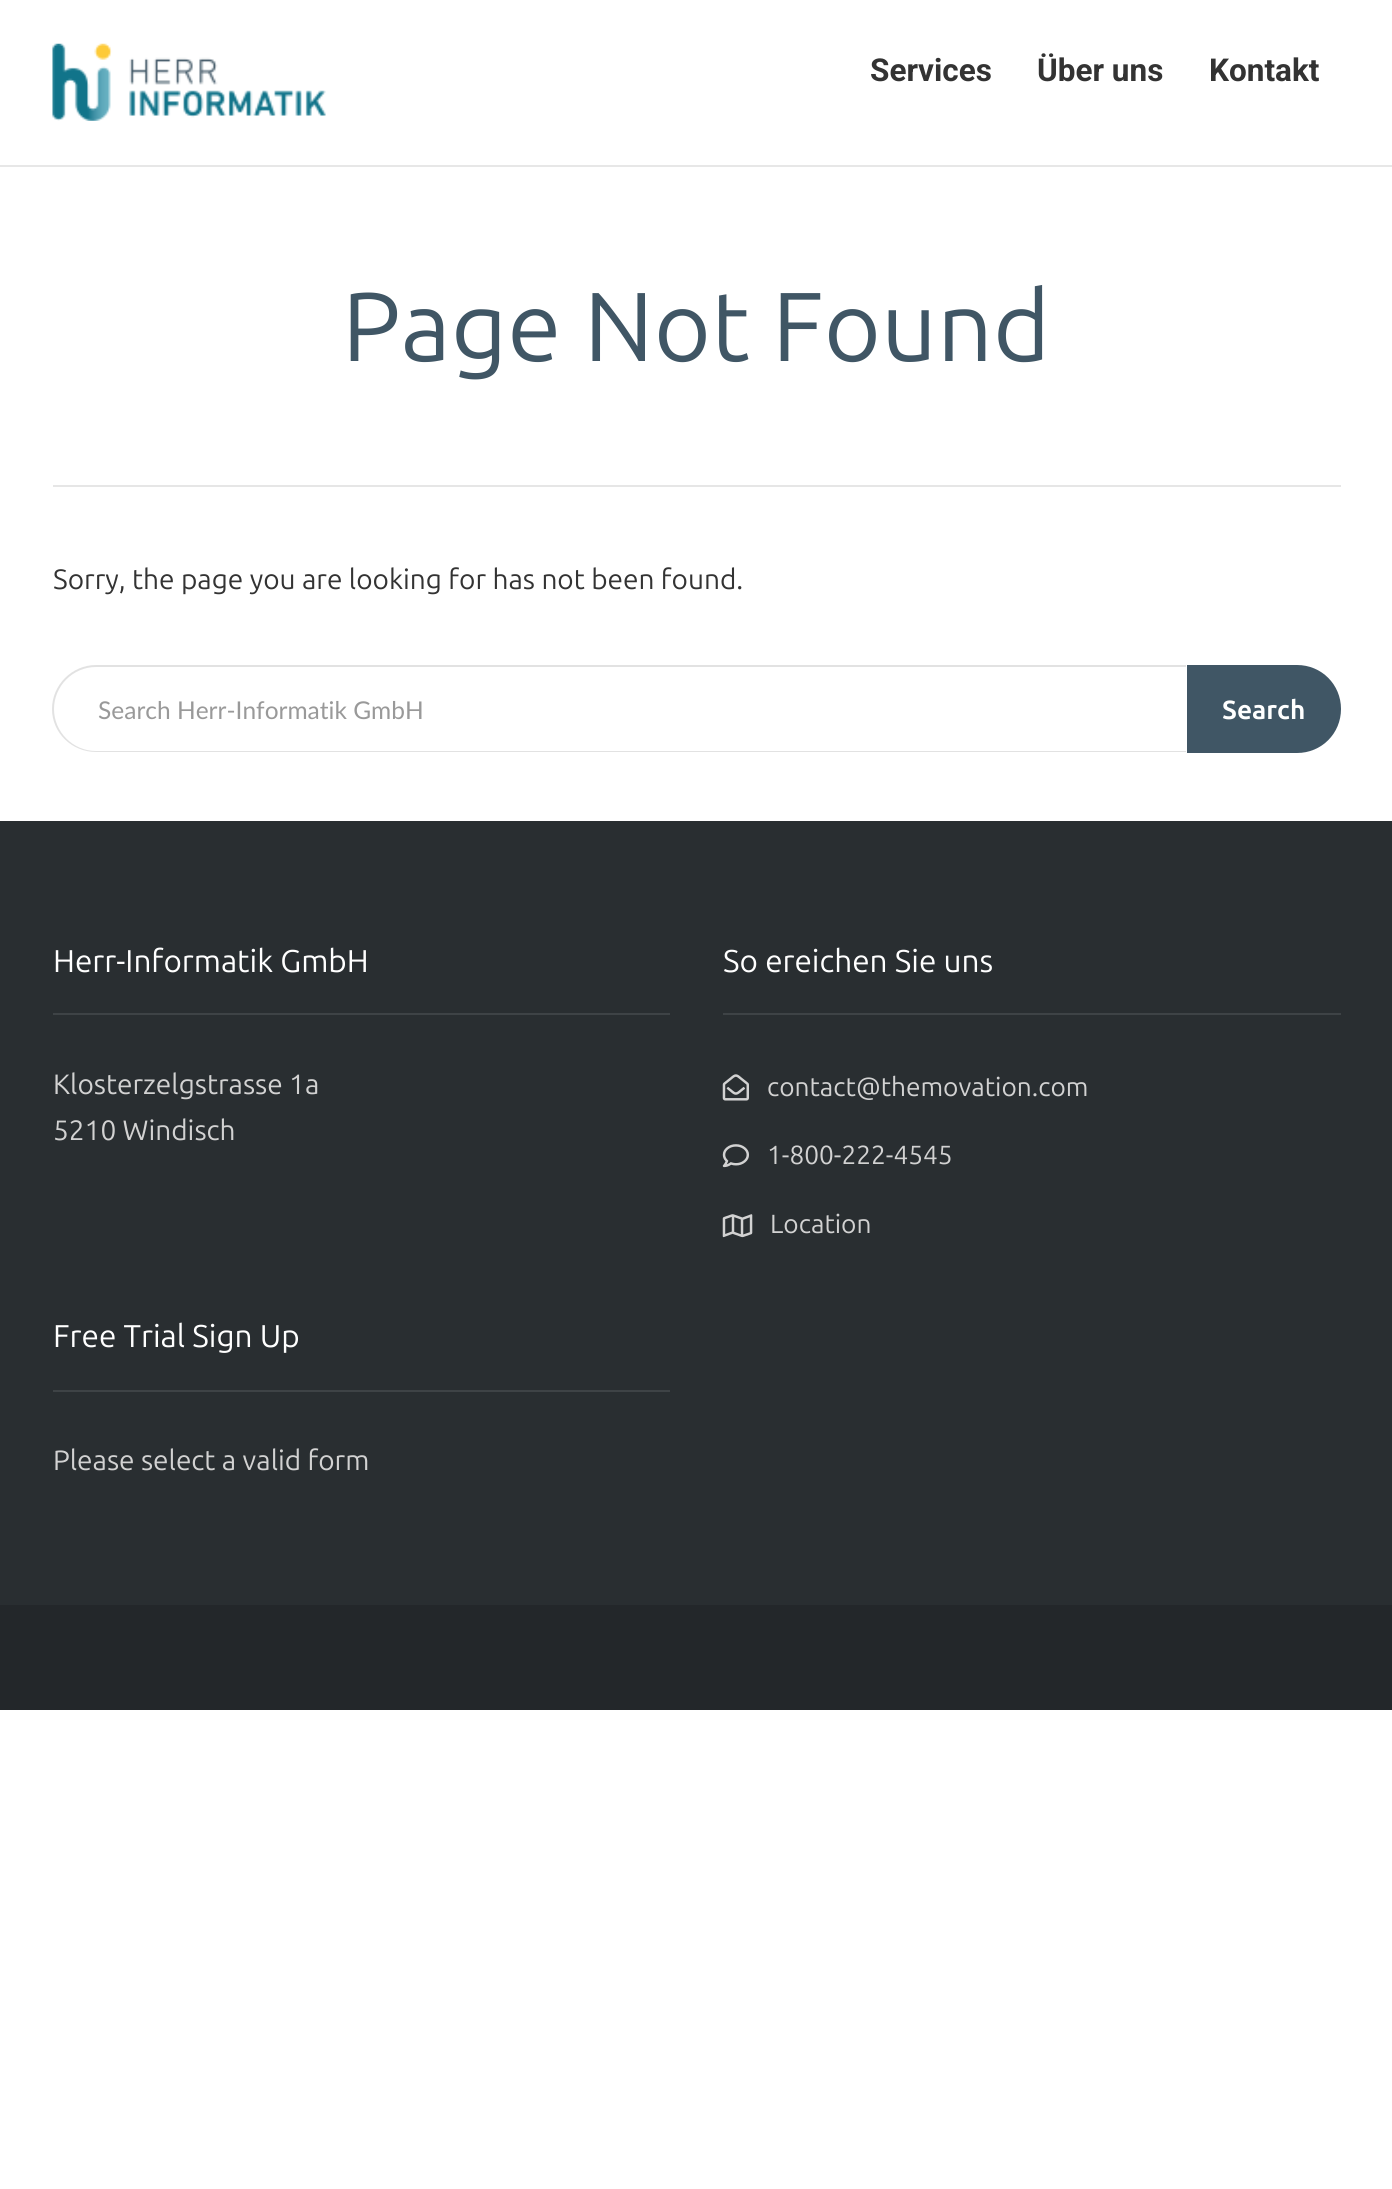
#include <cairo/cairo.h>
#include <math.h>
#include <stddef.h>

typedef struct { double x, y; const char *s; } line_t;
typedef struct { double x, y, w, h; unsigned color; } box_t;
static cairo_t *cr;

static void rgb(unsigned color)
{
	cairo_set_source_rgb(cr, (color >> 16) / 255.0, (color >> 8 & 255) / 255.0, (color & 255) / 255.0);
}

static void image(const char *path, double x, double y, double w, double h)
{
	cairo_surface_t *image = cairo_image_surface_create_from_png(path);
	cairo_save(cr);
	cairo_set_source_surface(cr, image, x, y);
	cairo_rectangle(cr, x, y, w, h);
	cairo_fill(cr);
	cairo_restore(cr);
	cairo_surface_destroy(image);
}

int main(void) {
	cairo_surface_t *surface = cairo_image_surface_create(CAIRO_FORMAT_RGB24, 1392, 2189);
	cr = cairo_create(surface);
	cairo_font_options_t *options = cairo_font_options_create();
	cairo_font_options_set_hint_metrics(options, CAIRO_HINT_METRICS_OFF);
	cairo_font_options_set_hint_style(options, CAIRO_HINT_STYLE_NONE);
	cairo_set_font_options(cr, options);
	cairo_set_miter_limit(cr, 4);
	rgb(0xffffff);
	cairo_paint(cr);
	rgb(0xe7e7e7);
	cairo_rectangle(cr, 0, 165, 1392, 2);
	cairo_fill(cr);
	image("img/1.png", 52, 43, 274, 78);
	rgb(0xe6e6e6);
	cairo_rectangle(cr, 53, 485, 1288, 2);
	cairo_fill(cr);
	rgb(0xe2e2e2);
	cairo_set_fill_rule(cr, CAIRO_FILL_RULE_EVEN_ODD);
	cairo_new_path(cr);
	cairo_move_to(cr, 96, 665);
	cairo_line_to(cr, 1186, 665);
	cairo_line_to(cr, 1186, 752);
	cairo_line_to(cr, 96, 752);
	cairo_curve_to(cr, 72, 752, 52, 733, 52, 709);
	cairo_curve_to(cr, 52, 685, 72, 665, 96, 665);
	cairo_close_path(cr);
	cairo_move_to(cr, 96, 667);
	cairo_line_to(cr, 1186, 667);
	cairo_line_to(cr, 1186, 751);
	cairo_line_to(cr, 96, 751);
	cairo_curve_to(cr, 73, 751, 54, 732, 54, 709);
	cairo_curve_to(cr, 54, 686, 73, 667, 96, 667);
	cairo_close_path(cr);
	cairo_fill(cr);
	rgb(0x405665);
	cairo_new_path(cr);
	cairo_move_to(cr, 1187, 665);
	cairo_line_to(cr, 1297, 665);
	cairo_curve_to(cr, 1321.5, 665, 1341, 684.5, 1341, 709);
	cairo_curve_to(cr, 1341, 733.5, 1321.5, 753, 1297, 753);
	cairo_line_to(cr, 1187, 753);
	cairo_close_path(cr);
	cairo_fill(cr);
	{
		static const box_t items[] = {
			{0, 821, 1392, 784, 0x292e31},
			{53, 1013, 617, 2, 0x3e4346},
			{723, 1013, 618, 2, 0x3e4346},
		};
		for (size_t i = 0; i < sizeof items / sizeof *items; i++) {
			rgb(items[i].color);
			cairo_rectangle(cr, items[i].x, items[i].y, items[i].w, items[i].h);
			cairo_fill(cr);
		}
	}
	image("img/2.png", 722, 1074, 27, 27);
	image("img/3.png", 722, 1144, 27, 24);
	image("img/4.png", 722, 1214, 31, 24);
	cairo_rectangle(cr, 53, 1390, 617, 2);
	cairo_fill(cr);
	rgb(0x23272a);
	cairo_rectangle(cr, 0, 1605, 1392, 105);
	cairo_fill(cr);
	cairo_select_font_face(cr, "Roboto", CAIRO_FONT_SLANT_NORMAL, CAIRO_FONT_WEIGHT_BOLD);
	cairo_set_font_size(cr, 31.5);
	rgb(0x333333);
	{
		static const line_t items[] = {
			{870, 81, "Services"},
			{1037, 81, "Über uns"},
			{1209, 81, "Kontakt"},
		};
		for (size_t i = 0; i < sizeof items / sizeof *items; i++) {
			cairo_move_to(cr, items[i].x, items[i].y);
			cairo_show_text(cr, items[i].s);
		}
	}
	cairo_select_font_face(cr, "Ubuntu", CAIRO_FONT_SLANT_NORMAL, CAIRO_FONT_WEIGHT_NORMAL);
	cairo_set_font_size(cr, 98);
	rgb(0x405665);
	cairo_move_to(cr, 342, 361);
	cairo_show_text(cr, "Page Not Found");
	cairo_set_font_size(cr, 28);
	rgb(0x333333);
	cairo_move_to(cr, 53, 589);
	cairo_show_text(cr, "Sorry, the page you are looking for has not been found.");
	cairo_select_font_face(cr, "Lato", CAIRO_FONT_SLANT_NORMAL, CAIRO_FONT_WEIGHT_NORMAL);
	cairo_set_font_size(cr, 24.5);
	rgb(0x999999);
	cairo_move_to(cr, 98, 719);
	cairo_show_text(cr, "Search Herr-Informatik GmbH");
	cairo_select_font_face(cr, "Ubuntu", CAIRO_FONT_SLANT_NORMAL, CAIRO_FONT_WEIGHT_BOLD);
	cairo_set_font_size(cr, 26.25);
	rgb(0xffffff);
	cairo_move_to(cr, 1222, 719);
	cairo_show_text(cr, "Search");
	cairo_select_font_face(cr, "Ubuntu", CAIRO_FONT_SLANT_NORMAL, CAIRO_FONT_WEIGHT_NORMAL);
	cairo_set_font_size(cr, 31.5);
	cairo_move_to(cr, 53, 972);
	cairo_show_text(cr, "Herr-Informatik GmbH");
	cairo_set_font_size(cr, 28);
	rgb(0xd2d2d2);
	cairo_move_to(cr, 53, 1094);
	cairo_show_text(cr, "Klosterzelgstrasse 1a");
	cairo_move_to(cr, 53, 1140);
	cairo_show_text(cr, "5210 Windisch");
	cairo_set_font_size(cr, 31.5);
	rgb(0xffffff);
	cairo_move_to(cr, 723, 972);
	cairo_show_text(cr, "So ereichen Sie uns");
	cairo_set_font_size(cr, 26.25);
	rgb(0xd2d2d2);
	{
		static const line_t items[] = {
			{767, 1096, "contact@themovation.com"},
			{767, 1164, "1-800-222-4545"},
			{770, 1233, "Location"},
		};
		for (size_t i = 0; i < sizeof items / sizeof *items; i++) {
			cairo_move_to(cr, items[i].x, items[i].y);
			cairo_show_text(cr, items[i].s);
		}
	}
	cairo_set_font_size(cr, 31.5);
	rgb(0xffffff);
	cairo_move_to(cr, 53, 1347);
	cairo_show_text(cr, "Free Trial Sign Up");
	cairo_set_font_size(cr, 28);
	rgb(0xd2d2d2);
	cairo_move_to(cr, 53, 1470);
	cairo_show_text(cr, "Please select a valid form");
	cairo_surface_write_to_png(surface, "page.png");
	cairo_font_options_destroy(options);
	cairo_destroy(cr);
	cairo_surface_destroy(surface);
	return 0;
}
